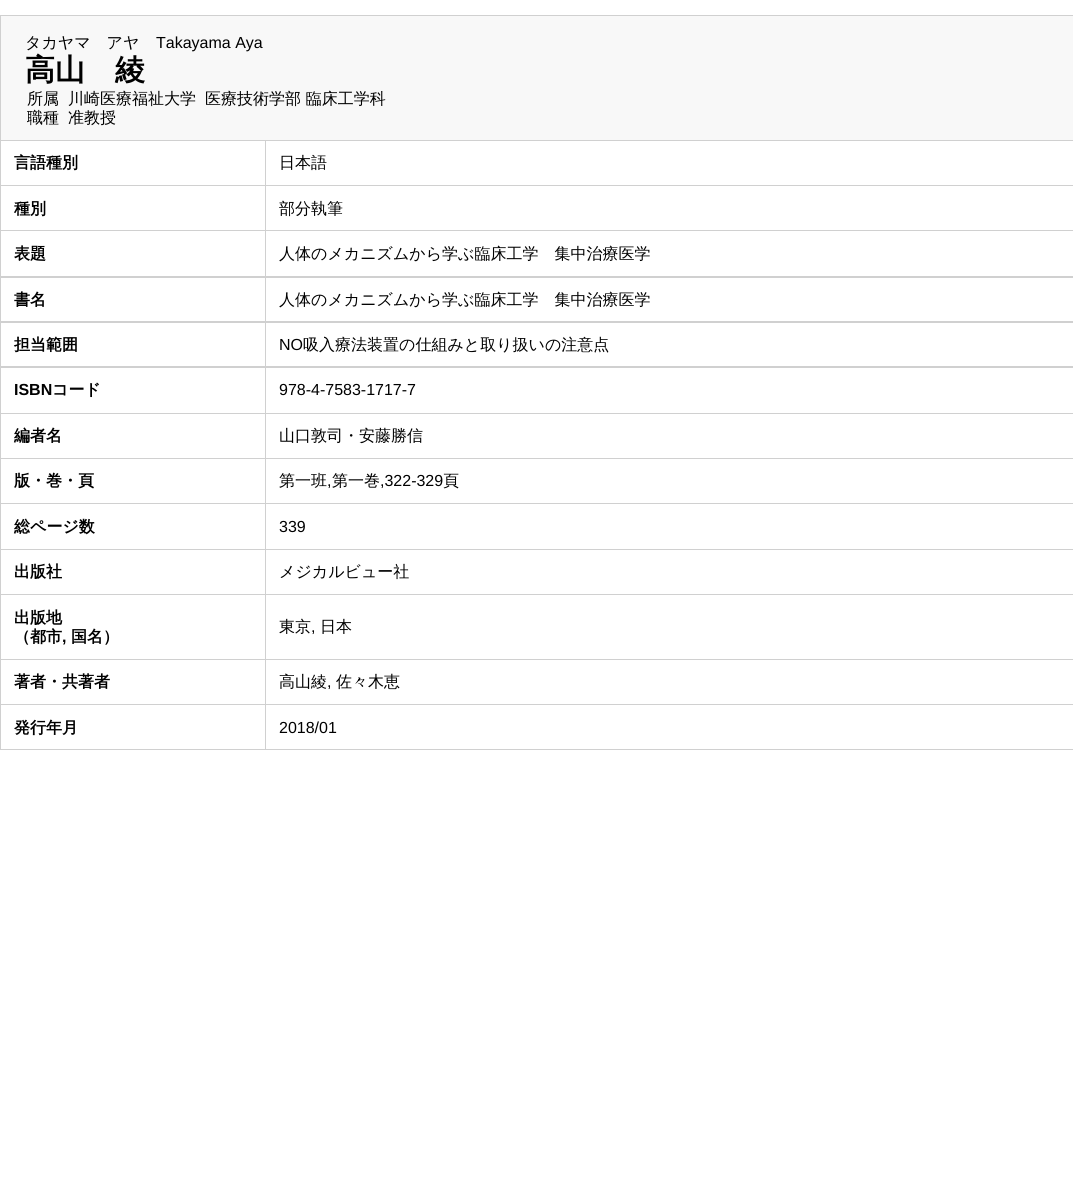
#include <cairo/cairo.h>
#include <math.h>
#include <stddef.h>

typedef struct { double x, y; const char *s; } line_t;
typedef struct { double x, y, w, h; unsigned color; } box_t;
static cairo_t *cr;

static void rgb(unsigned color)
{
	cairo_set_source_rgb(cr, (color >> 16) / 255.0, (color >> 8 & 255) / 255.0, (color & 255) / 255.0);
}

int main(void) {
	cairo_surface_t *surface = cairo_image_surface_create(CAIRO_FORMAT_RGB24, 1073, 1199);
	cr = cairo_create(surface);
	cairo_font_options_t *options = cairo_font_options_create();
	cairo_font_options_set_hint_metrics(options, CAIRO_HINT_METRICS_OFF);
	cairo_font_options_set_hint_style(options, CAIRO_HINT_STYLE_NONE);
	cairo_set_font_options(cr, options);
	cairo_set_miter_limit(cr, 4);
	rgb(0xffffff);
	cairo_paint(cr);
	{
		static const box_t items[] = {
			{0, 15, 1073, 735, 0xd0d0d0},
			{1, 16, 1072, 124, 0xf8f8f8},
			{1, 141, 264, 44, 0xffffff},
			{266, 141, 807, 44, 0xffffff},
			{1, 186, 264, 44, 0xffffff},
			{266, 186, 807, 44, 0xffffff},
			{1, 231, 264, 45, 0xffffff},
			{266, 231, 807, 45, 0xffffff},
			{1, 278, 264, 43, 0xffffff},
			{266, 278, 807, 43, 0xffffff},
			{1, 323, 264, 43, 0xffffff},
			{266, 323, 807, 43, 0xffffff},
			{1, 368, 264, 45, 0xffffff},
			{266, 368, 807, 45, 0xffffff},
			{1, 414, 264, 44, 0xffffff},
			{266, 414, 807, 44, 0xffffff},
			{1, 459, 264, 44, 0xffffff},
			{266, 459, 807, 44, 0xffffff},
			{1, 504, 264, 45, 0xffffff},
			{266, 504, 807, 45, 0xffffff},
			{1, 550, 264, 44, 0xffffff},
			{266, 550, 807, 44, 0xffffff},
			{1, 595, 264, 64, 0xffffff},
			{266, 595, 807, 64, 0xffffff},
			{1, 660, 264, 44, 0xffffff},
			{266, 660, 807, 44, 0xffffff},
			{1, 705, 264, 44, 0xffffff},
			{266, 705, 807, 44, 0xffffff},
		};
		for (size_t i = 0; i < sizeof items / sizeof *items; i++) {
			rgb(items[i].color);
			cairo_rectangle(cr, items[i].x, items[i].y, items[i].w, items[i].h);
			cairo_fill(cr);
		}
	}
	cairo_select_font_face(cr, "WenQuanYi Zen Hei Medium", CAIRO_FONT_SLANT_NORMAL, CAIRO_FONT_WEIGHT_NORMAL);
	cairo_set_font_size(cr, 16);
	rgb(0x000000);
	cairo_move_to(cr, 25, 48);
	cairo_show_text(cr, "タカヤマ　アヤ");
	cairo_select_font_face(cr, "Liberation Sans", CAIRO_FONT_SLANT_NORMAL, CAIRO_FONT_WEIGHT_NORMAL);
	cairo_move_to(cr, 156, 48);
	cairo_show_text(cr, "Takayama Aya");
	cairo_select_font_face(cr, "WenQuanYi Zen Hei", CAIRO_FONT_SLANT_NORMAL, CAIRO_FONT_WEIGHT_BOLD);
	cairo_set_font_size(cr, 30);
	cairo_move_to(cr, 25, 80);
	cairo_show_text(cr, "高山　綾");
	cairo_select_font_face(cr, "WenQuanYi Zen Hei Medium", CAIRO_FONT_SLANT_NORMAL, CAIRO_FONT_WEIGHT_NORMAL);
	cairo_set_font_size(cr, 16);
	{
		static const line_t items[] = {
			{27, 104, "所属"},
			{68, 104, "川崎医療福祉大学"},
			{205, 104, "医療技術学部 臨床工学科"},
			{27, 123, "職種"},
			{68, 123, "准教授"},
		};
		for (size_t i = 0; i < sizeof items / sizeof *items; i++) {
			cairo_move_to(cr, items[i].x, items[i].y);
			cairo_show_text(cr, items[i].s);
		}
	}
	cairo_select_font_face(cr, "WenQuanYi Zen Hei", CAIRO_FONT_SLANT_NORMAL, CAIRO_FONT_WEIGHT_BOLD);
	cairo_move_to(cr, 14, 168);
	cairo_show_text(cr, "言語種別");
	cairo_select_font_face(cr, "WenQuanYi Zen Hei Medium", CAIRO_FONT_SLANT_NORMAL, CAIRO_FONT_WEIGHT_NORMAL);
	cairo_move_to(cr, 279, 168);
	cairo_show_text(cr, "日本語");
	cairo_select_font_face(cr, "WenQuanYi Zen Hei", CAIRO_FONT_SLANT_NORMAL, CAIRO_FONT_WEIGHT_BOLD);
	cairo_move_to(cr, 14, 214);
	cairo_show_text(cr, "種別");
	cairo_select_font_face(cr, "WenQuanYi Zen Hei Medium", CAIRO_FONT_SLANT_NORMAL, CAIRO_FONT_WEIGHT_NORMAL);
	cairo_move_to(cr, 279, 214);
	cairo_show_text(cr, "部分執筆");
	cairo_select_font_face(cr, "WenQuanYi Zen Hei", CAIRO_FONT_SLANT_NORMAL, CAIRO_FONT_WEIGHT_BOLD);
	cairo_move_to(cr, 14, 259);
	cairo_show_text(cr, "表題");
	cairo_select_font_face(cr, "WenQuanYi Zen Hei Medium", CAIRO_FONT_SLANT_NORMAL, CAIRO_FONT_WEIGHT_NORMAL);
	cairo_move_to(cr, 279, 259);
	cairo_show_text(cr, "人体のメカニズムから学ぶ臨床工学　集中治療医学");
	cairo_select_font_face(cr, "WenQuanYi Zen Hei", CAIRO_FONT_SLANT_NORMAL, CAIRO_FONT_WEIGHT_BOLD);
	cairo_move_to(cr, 14, 305);
	cairo_show_text(cr, "書名");
	cairo_select_font_face(cr, "WenQuanYi Zen Hei Medium", CAIRO_FONT_SLANT_NORMAL, CAIRO_FONT_WEIGHT_NORMAL);
	cairo_move_to(cr, 279, 305);
	cairo_show_text(cr, "人体のメカニズムから学ぶ臨床工学　集中治療医学");
	cairo_select_font_face(cr, "WenQuanYi Zen Hei", CAIRO_FONT_SLANT_NORMAL, CAIRO_FONT_WEIGHT_BOLD);
	cairo_move_to(cr, 14, 350);
	cairo_show_text(cr, "担当範囲");
	cairo_select_font_face(cr, "Liberation Sans", CAIRO_FONT_SLANT_NORMAL, CAIRO_FONT_WEIGHT_NORMAL);
	cairo_move_to(cr, 279, 350);
	cairo_show_text(cr, "NO");
	cairo_select_font_face(cr, "WenQuanYi Zen Hei Medium", CAIRO_FONT_SLANT_NORMAL, CAIRO_FONT_WEIGHT_NORMAL);
	cairo_move_to(cr, 303, 350);
	cairo_show_text(cr, "吸入療法装置の仕組みと取り扱いの注意点");
	cairo_select_font_face(cr, "Liberation Sans", CAIRO_FONT_SLANT_NORMAL, CAIRO_FONT_WEIGHT_BOLD);
	cairo_move_to(cr, 14, 395);
	cairo_show_text(cr, "ISBN");
	cairo_select_font_face(cr, "WenQuanYi Zen Hei", CAIRO_FONT_SLANT_NORMAL, CAIRO_FONT_WEIGHT_BOLD);
	cairo_move_to(cr, 52, 395);
	cairo_show_text(cr, "コード");
	cairo_select_font_face(cr, "Liberation Sans", CAIRO_FONT_SLANT_NORMAL, CAIRO_FONT_WEIGHT_NORMAL);
	cairo_move_to(cr, 279, 395);
	cairo_show_text(cr, "978-4-7583-1717-7");
	cairo_select_font_face(cr, "WenQuanYi Zen Hei", CAIRO_FONT_SLANT_NORMAL, CAIRO_FONT_WEIGHT_BOLD);
	cairo_move_to(cr, 14, 441);
	cairo_show_text(cr, "編者名");
	cairo_select_font_face(cr, "WenQuanYi Zen Hei Medium", CAIRO_FONT_SLANT_NORMAL, CAIRO_FONT_WEIGHT_NORMAL);
	cairo_move_to(cr, 279, 441);
	cairo_show_text(cr, "山口敦司・安藤勝信");
	cairo_select_font_face(cr, "WenQuanYi Zen Hei", CAIRO_FONT_SLANT_NORMAL, CAIRO_FONT_WEIGHT_BOLD);
	cairo_move_to(cr, 14, 486);
	cairo_show_text(cr, "版・巻・頁");
	cairo_select_font_face(cr, "WenQuanYi Zen Hei Medium", CAIRO_FONT_SLANT_NORMAL, CAIRO_FONT_WEIGHT_NORMAL);
	cairo_move_to(cr, 279, 486);
	cairo_show_text(cr, "第一班");
	cairo_select_font_face(cr, "Liberation Sans", CAIRO_FONT_SLANT_NORMAL, CAIRO_FONT_WEIGHT_NORMAL);
	cairo_move_to(cr, 327, 486);
	cairo_show_text(cr, ",");
	cairo_select_font_face(cr, "WenQuanYi Zen Hei Medium", CAIRO_FONT_SLANT_NORMAL, CAIRO_FONT_WEIGHT_NORMAL);
	cairo_move_to(cr, 332, 486);
	cairo_show_text(cr, "第一巻");
	cairo_select_font_face(cr, "Liberation Sans", CAIRO_FONT_SLANT_NORMAL, CAIRO_FONT_WEIGHT_NORMAL);
	cairo_move_to(cr, 380, 486);
	cairo_show_text(cr, ",322-329");
	cairo_select_font_face(cr, "WenQuanYi Zen Hei Medium", CAIRO_FONT_SLANT_NORMAL, CAIRO_FONT_WEIGHT_NORMAL);
	cairo_move_to(cr, 443, 486);
	cairo_show_text(cr, "頁");
	cairo_select_font_face(cr, "WenQuanYi Zen Hei", CAIRO_FONT_SLANT_NORMAL, CAIRO_FONT_WEIGHT_BOLD);
	cairo_move_to(cr, 14, 532);
	cairo_show_text(cr, "総ページ数");
	cairo_select_font_face(cr, "Liberation Sans", CAIRO_FONT_SLANT_NORMAL, CAIRO_FONT_WEIGHT_NORMAL);
	cairo_move_to(cr, 279, 532);
	cairo_show_text(cr, "339");
	cairo_select_font_face(cr, "WenQuanYi Zen Hei", CAIRO_FONT_SLANT_NORMAL, CAIRO_FONT_WEIGHT_BOLD);
	cairo_move_to(cr, 14, 577);
	cairo_show_text(cr, "出版社");
	cairo_select_font_face(cr, "WenQuanYi Zen Hei Medium", CAIRO_FONT_SLANT_NORMAL, CAIRO_FONT_WEIGHT_NORMAL);
	cairo_move_to(cr, 279, 577);
	cairo_show_text(cr, "メジカルビュー社");
	cairo_select_font_face(cr, "WenQuanYi Zen Hei", CAIRO_FONT_SLANT_NORMAL, CAIRO_FONT_WEIGHT_BOLD);
	cairo_move_to(cr, 14, 623);
	cairo_show_text(cr, "出版地");
	cairo_move_to(cr, 14, 642);
	cairo_show_text(cr, "（都市");
	cairo_select_font_face(cr, "Liberation Sans", CAIRO_FONT_SLANT_NORMAL, CAIRO_FONT_WEIGHT_BOLD);
	cairo_move_to(cr, 62, 642);
	cairo_show_text(cr, ",");
	cairo_select_font_face(cr, "WenQuanYi Zen Hei", CAIRO_FONT_SLANT_NORMAL, CAIRO_FONT_WEIGHT_BOLD);
	cairo_move_to(cr, 71, 642);
	cairo_show_text(cr, "国名）");
	cairo_select_font_face(cr, "WenQuanYi Zen Hei Medium", CAIRO_FONT_SLANT_NORMAL, CAIRO_FONT_WEIGHT_NORMAL);
	cairo_move_to(cr, 279, 632);
	cairo_show_text(cr, "東京");
	cairo_select_font_face(cr, "Liberation Sans", CAIRO_FONT_SLANT_NORMAL, CAIRO_FONT_WEIGHT_NORMAL);
	cairo_move_to(cr, 311, 632);
	cairo_show_text(cr, ",");
	cairo_select_font_face(cr, "WenQuanYi Zen Hei Medium", CAIRO_FONT_SLANT_NORMAL, CAIRO_FONT_WEIGHT_NORMAL);
	cairo_move_to(cr, 320, 632);
	cairo_show_text(cr, "日本");
	cairo_select_font_face(cr, "WenQuanYi Zen Hei", CAIRO_FONT_SLANT_NORMAL, CAIRO_FONT_WEIGHT_BOLD);
	cairo_move_to(cr, 14, 687);
	cairo_show_text(cr, "著者・共著者");
	cairo_select_font_face(cr, "WenQuanYi Zen Hei Medium", CAIRO_FONT_SLANT_NORMAL, CAIRO_FONT_WEIGHT_NORMAL);
	cairo_move_to(cr, 279, 687);
	cairo_show_text(cr, "高山綾");
	cairo_select_font_face(cr, "Liberation Sans", CAIRO_FONT_SLANT_NORMAL, CAIRO_FONT_WEIGHT_NORMAL);
	cairo_move_to(cr, 327, 687);
	cairo_show_text(cr, ",");
	cairo_select_font_face(cr, "WenQuanYi Zen Hei Medium", CAIRO_FONT_SLANT_NORMAL, CAIRO_FONT_WEIGHT_NORMAL);
	cairo_move_to(cr, 336, 687);
	cairo_show_text(cr, "佐々木恵");
	cairo_select_font_face(cr, "WenQuanYi Zen Hei", CAIRO_FONT_SLANT_NORMAL, CAIRO_FONT_WEIGHT_BOLD);
	cairo_move_to(cr, 14, 733);
	cairo_show_text(cr, "発行年月");
	cairo_select_font_face(cr, "Liberation Sans", CAIRO_FONT_SLANT_NORMAL, CAIRO_FONT_WEIGHT_NORMAL);
	cairo_move_to(cr, 279, 733);
	cairo_show_text(cr, "2018/01");
	cairo_surface_write_to_png(surface, "page.png");
	cairo_font_options_destroy(options);
	cairo_destroy(cr);
	cairo_surface_destroy(surface);
	return 0;
}
